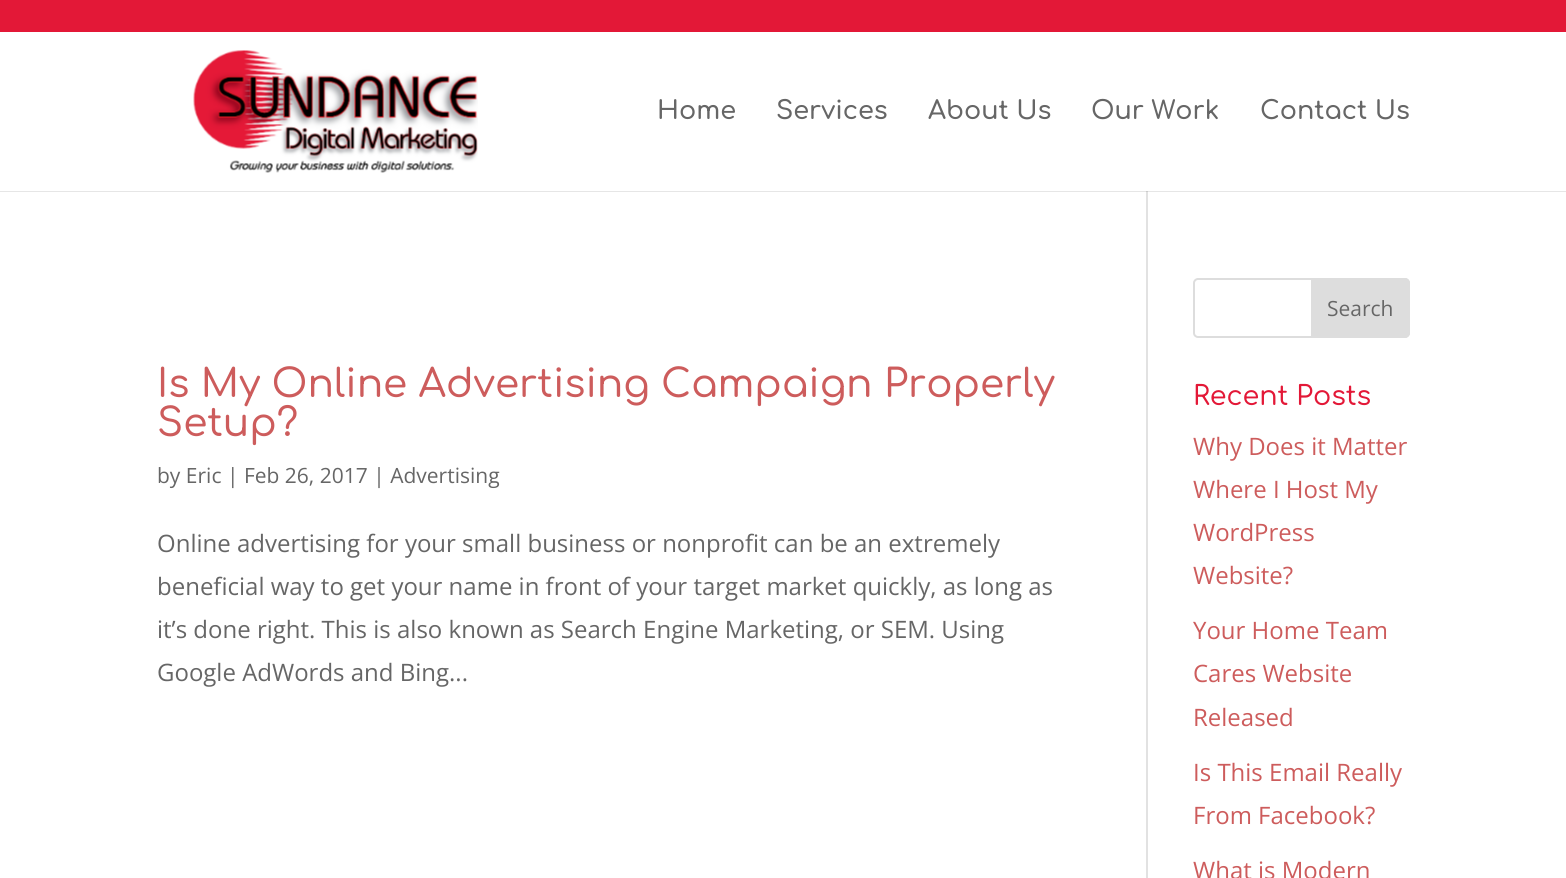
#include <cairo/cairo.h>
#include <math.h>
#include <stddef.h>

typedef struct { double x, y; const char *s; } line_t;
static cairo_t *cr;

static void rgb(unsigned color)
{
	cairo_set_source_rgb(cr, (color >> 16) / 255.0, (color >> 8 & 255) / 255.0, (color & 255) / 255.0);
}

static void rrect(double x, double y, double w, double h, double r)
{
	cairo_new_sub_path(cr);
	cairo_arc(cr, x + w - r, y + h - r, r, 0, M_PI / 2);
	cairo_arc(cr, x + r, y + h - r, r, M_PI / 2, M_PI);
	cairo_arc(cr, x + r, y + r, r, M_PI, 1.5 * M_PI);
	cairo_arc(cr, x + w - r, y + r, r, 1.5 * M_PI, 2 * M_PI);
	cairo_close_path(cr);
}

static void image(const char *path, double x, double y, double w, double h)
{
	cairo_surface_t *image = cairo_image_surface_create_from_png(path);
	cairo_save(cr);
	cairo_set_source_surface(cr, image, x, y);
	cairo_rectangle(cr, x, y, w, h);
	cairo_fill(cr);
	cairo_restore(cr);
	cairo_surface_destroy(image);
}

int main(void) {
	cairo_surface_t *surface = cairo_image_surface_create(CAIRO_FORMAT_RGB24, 1566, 878);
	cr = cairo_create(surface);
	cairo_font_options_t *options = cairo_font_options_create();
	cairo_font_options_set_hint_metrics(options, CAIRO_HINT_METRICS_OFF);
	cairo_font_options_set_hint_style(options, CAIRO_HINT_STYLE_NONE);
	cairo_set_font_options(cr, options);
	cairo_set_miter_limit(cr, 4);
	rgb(0xffffff);
	cairo_paint(cr);
	rgb(0xe6e6e6);
	cairo_rectangle(cr, 0, 191, 1566, 1);
	cairo_fill(cr);
	rgb(0xe31837);
	cairo_rectangle(cr, 0, 0, 1566, 32);
	cairo_fill(cr);
	image("img/1.png", 193, 50, 285, 123);
	rgb(0xe2e2e2);
	cairo_rectangle(cr, 1146, 191, 2, 687);
	cairo_fill(cr);
	rgb(0xcbcbcb);
	cairo_rectangle(cr, 1146, 191, 2, 1);
	cairo_fill(cr);
	rrect(1194, 279, 215, 58, 4);
	rgb(0xdddddd);
	cairo_stroke(cr);
	cairo_new_path(cr);
	cairo_move_to(cr, 1312, 279);
	cairo_line_to(cr, 1405, 279);
	cairo_curve_to(cr, 1407, 279, 1409, 281, 1409, 283);
	cairo_line_to(cr, 1409, 333);
	cairo_curve_to(cr, 1409, 335, 1407, 337, 1405, 337);
	cairo_line_to(cr, 1312, 337);
	cairo_close_path(cr);
	cairo_fill_preserve(cr);
	cairo_stroke(cr);
	cairo_select_font_face(cr, "Comfortaa SemiBold", CAIRO_FONT_SLANT_NORMAL, CAIRO_FONT_WEIGHT_NORMAL);
	cairo_set_font_size(cr, 25.5);
	rgb(0x666666);
	{
		static const line_t items[] = {
			{657, 119, "Home"},
			{776, 119, "Services"},
			{928, 119, "About Us"},
			{1091, 119, "Our Work"},
			{1260, 119, "Contact Us"},
		};
		for (size_t i = 0; i < sizeof items / sizeof *items; i++) {
			cairo_move_to(cr, items[i].x, items[i].y);
			cairo_show_text(cr, items[i].s);
		}
	}
	cairo_select_font_face(cr, "Comfortaa Medium", CAIRO_FONT_SLANT_NORMAL, CAIRO_FONT_WEIGHT_NORMAL);
	cairo_set_font_size(cr, 39);
	rgb(0xcd5c5c);
	cairo_move_to(cr, 157, 397);
	cairo_show_text(cr, "Is My Online Advertising Campaign Properly");
	cairo_move_to(cr, 157, 436);
	cairo_show_text(cr, "Setup?");
	cairo_select_font_face(cr, "Open Sans", CAIRO_FONT_SLANT_NORMAL, CAIRO_FONT_WEIGHT_NORMAL);
	cairo_set_font_size(cr, 21);
	rgb(0x666666);
	cairo_move_to(cr, 157, 483);
	cairo_show_text(cr, "by Eric | Feb 26, 2017 | Advertising");
	cairo_set_font_size(cr, 24);
	{
		static const line_t items[] = {
			{157, 552, "Online advertising for your small business or nonprofit can be an extremely"},
			{157, 595, "beneficial way to get your name in front of your target market quickly, as long as"},
			{157, 638, "it’s done right. This is also known as Search Engine Marketing, or SEM. Using"},
			{157, 681, "Google AdWords and Bing..."},
		};
		for (size_t i = 0; i < sizeof items / sizeof *items; i++) {
			cairo_move_to(cr, items[i].x, items[i].y);
			cairo_show_text(cr, items[i].s);
		}
	}
	cairo_set_font_size(cr, 21);
	cairo_move_to(cr, 1327, 316);
	cairo_show_text(cr, "Search");
	cairo_select_font_face(cr, "Comfortaa Medium", CAIRO_FONT_SLANT_NORMAL, CAIRO_FONT_WEIGHT_NORMAL);
	cairo_set_font_size(cr, 27);
	rgb(0xe31837);
	cairo_move_to(cr, 1193, 405);
	cairo_show_text(cr, "Recent Posts");
	cairo_select_font_face(cr, "Open Sans", CAIRO_FONT_SLANT_NORMAL, CAIRO_FONT_WEIGHT_NORMAL);
	cairo_set_font_size(cr, 24);
	rgb(0xcd5c5c);
	{
		static const line_t items[] = {
			{1193, 455, "Why Does it Matter"},
			{1193, 498, "Where I Host My"},
			{1193, 541, "WordPress"},
			{1193, 584, "Website?"},
			{1193, 639, "Your Home Team"},
			{1193, 682, "Cares Website"},
			{1193, 726, "Released"},
			{1193, 781, "Is This Email Really"},
			{1193, 824, "From Facebook?"},
			{1193, 879, "What is Modern"},
		};
		for (size_t i = 0; i < sizeof items / sizeof *items; i++) {
			cairo_move_to(cr, items[i].x, items[i].y);
			cairo_show_text(cr, items[i].s);
		}
	}
	cairo_surface_write_to_png(surface, "page.png");
	cairo_font_options_destroy(options);
	cairo_destroy(cr);
	cairo_surface_destroy(surface);
	return 0;
}
